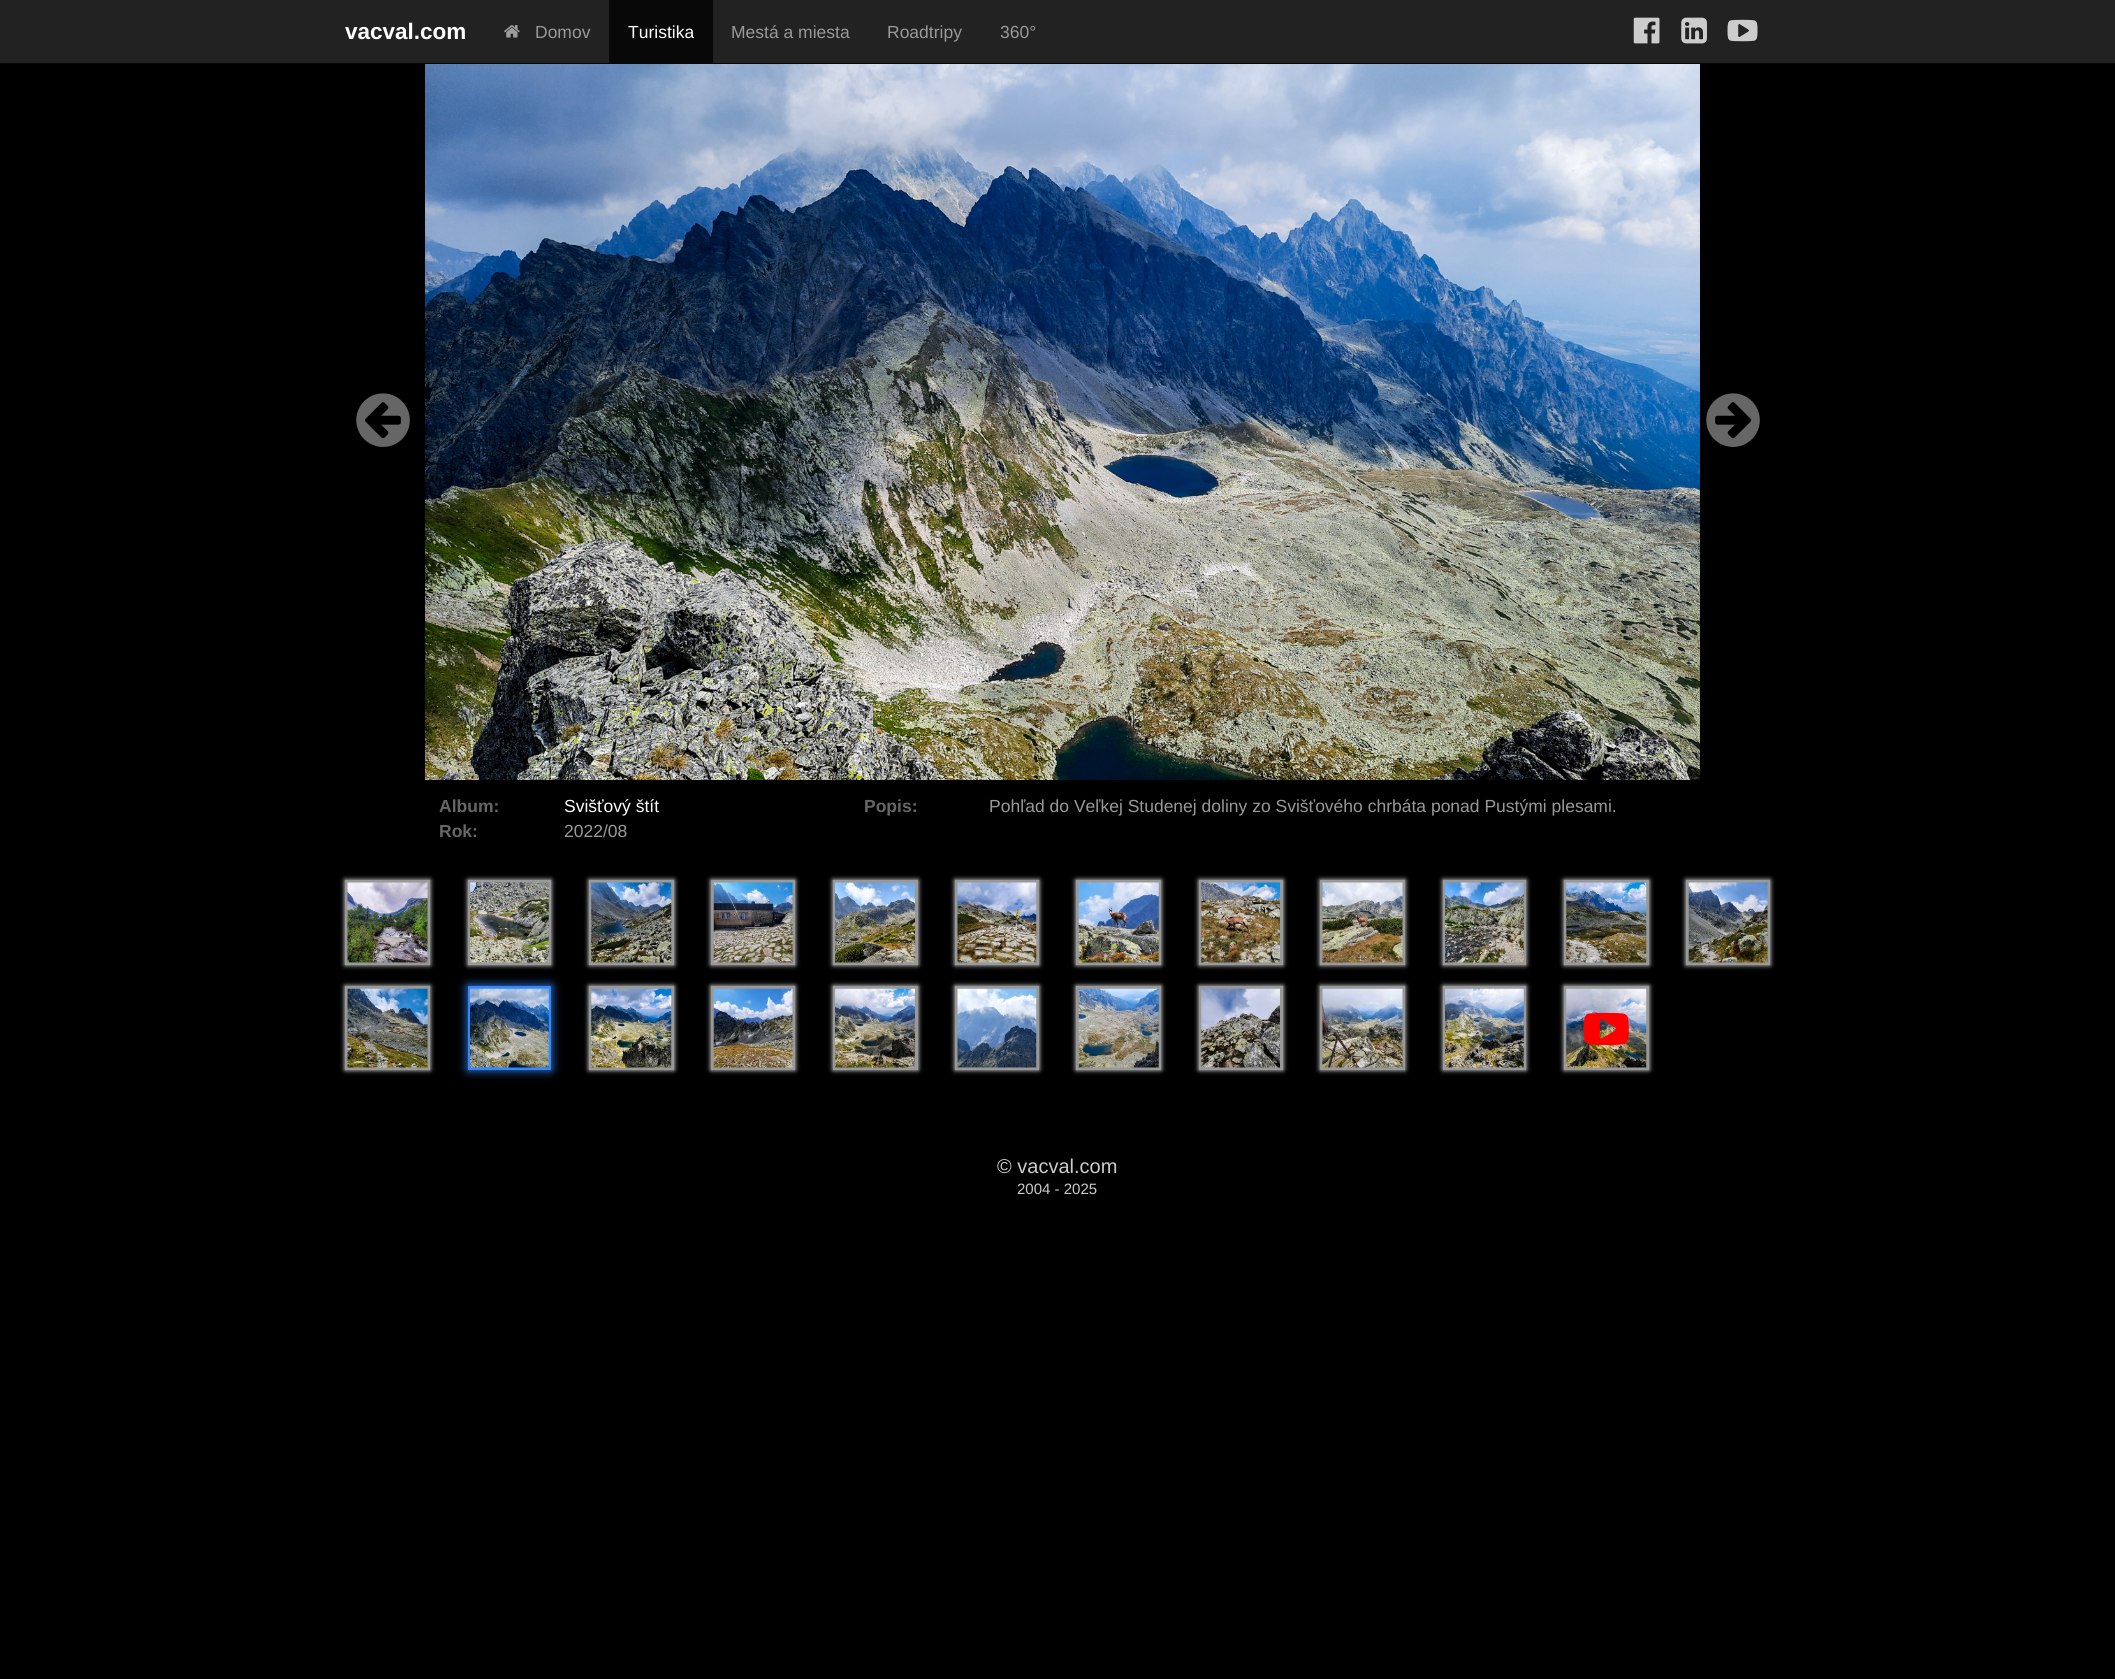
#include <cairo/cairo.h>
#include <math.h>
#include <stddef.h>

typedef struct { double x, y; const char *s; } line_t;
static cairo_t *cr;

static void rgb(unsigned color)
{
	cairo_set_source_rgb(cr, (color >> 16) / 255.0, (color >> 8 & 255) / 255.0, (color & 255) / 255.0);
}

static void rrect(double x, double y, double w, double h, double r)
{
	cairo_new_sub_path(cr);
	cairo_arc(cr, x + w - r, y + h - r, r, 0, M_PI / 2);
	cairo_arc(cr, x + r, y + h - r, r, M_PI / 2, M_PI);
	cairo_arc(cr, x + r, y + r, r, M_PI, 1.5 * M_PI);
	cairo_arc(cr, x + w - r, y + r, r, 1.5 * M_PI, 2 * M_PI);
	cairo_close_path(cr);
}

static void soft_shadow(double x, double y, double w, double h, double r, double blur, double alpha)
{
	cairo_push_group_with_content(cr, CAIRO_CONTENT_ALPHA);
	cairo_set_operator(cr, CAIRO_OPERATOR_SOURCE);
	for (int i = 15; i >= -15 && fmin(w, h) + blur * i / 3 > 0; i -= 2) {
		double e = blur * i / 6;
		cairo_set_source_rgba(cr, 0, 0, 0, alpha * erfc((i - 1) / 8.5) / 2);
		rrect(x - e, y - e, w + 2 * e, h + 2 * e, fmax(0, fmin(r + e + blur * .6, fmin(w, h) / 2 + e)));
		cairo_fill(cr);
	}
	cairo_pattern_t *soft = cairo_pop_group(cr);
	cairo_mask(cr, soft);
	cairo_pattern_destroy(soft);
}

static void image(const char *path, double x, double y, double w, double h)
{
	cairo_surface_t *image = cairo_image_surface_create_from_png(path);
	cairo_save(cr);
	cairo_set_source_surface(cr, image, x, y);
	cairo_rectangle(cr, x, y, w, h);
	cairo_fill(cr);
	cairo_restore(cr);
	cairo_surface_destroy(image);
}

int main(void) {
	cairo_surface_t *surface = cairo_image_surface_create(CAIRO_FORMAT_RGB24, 2115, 1679);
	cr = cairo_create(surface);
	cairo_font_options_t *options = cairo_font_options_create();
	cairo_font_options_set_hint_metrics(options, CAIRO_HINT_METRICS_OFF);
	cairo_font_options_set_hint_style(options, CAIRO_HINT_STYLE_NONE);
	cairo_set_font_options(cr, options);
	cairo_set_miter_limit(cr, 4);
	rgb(0x000000);
	cairo_paint(cr);
	rgb(0x222222);
	cairo_rectangle(cr, 0, 0, 2115, 63);
	cairo_fill(cr);
	rgb(0x080808);
	cairo_rectangle(cr, 0, 63, 2115, 1);
	cairo_fill(cr);
	image("img/1.png", 504, 25, 16, 13);
	cairo_rectangle(cr, 609, 0, 104, 63);
	cairo_fill(cr);
	image("img/2.png", 1633, 17, 27, 27);
	image("img/3.png", 1681, 17, 26, 27);
	image("img/4.png", 1727, 19, 31, 23);
	image("img/5.png", 356, 393, 54, 54);
	image("img/6.png", 1706, 393, 54, 54);
	image("img/7.png", 425, 64, 1275, 716);
	rgb(0xeeeeee);
	soft_shadow(345, 880, 85, 85, 0, 2.5, 1);
	cairo_rectangle(cr, 346.5, 881.5, 82, 82);
	rgb(0x999999);
	cairo_set_line_width(cr, 3);
	cairo_stroke(cr);
	image("img/8.png", 347, 882, 81, 81);
	rgb(0xeeeeee);
	soft_shadow(468, 880, 83, 85, 0, 2.5, 1);
	cairo_rectangle(cr, 469.5, 881.5, 80, 82);
	rgb(0x999999);
	cairo_stroke(cr);
	image("img/9.png", 470, 882, 79, 81);
	rgb(0xeeeeee);
	soft_shadow(589, 880, 85, 85, 0, 2.5, 1);
	cairo_rectangle(cr, 590.5, 881.5, 82, 82);
	rgb(0x999999);
	cairo_stroke(cr);
	image("img/10.png", 591, 882, 81, 81);
	rgb(0xeeeeee);
	soft_shadow(711, 880, 84, 85, 0, 2.5, 1);
	cairo_rectangle(cr, 712.5, 881.5, 81, 82);
	rgb(0x999999);
	cairo_stroke(cr);
	image("img/11.png", 713, 882, 80, 81);
	rgb(0xeeeeee);
	soft_shadow(833, 880, 85, 85, 0, 2.5, 1);
	cairo_rectangle(cr, 834.5, 881.5, 82, 82);
	rgb(0x999999);
	cairo_stroke(cr);
	image("img/12.png", 835, 882, 80, 81);
	rgb(0xeeeeee);
	soft_shadow(955, 880, 84, 85, 0, 2.5, 1);
	cairo_rectangle(cr, 956.5, 881.5, 81, 82);
	rgb(0x999999);
	cairo_stroke(cr);
	image("img/13.png", 957, 882, 80, 81);
	rgb(0xeeeeee);
	soft_shadow(1076, 880, 85, 85, 0, 2.5, 1);
	cairo_rectangle(cr, 1077.5, 881.5, 82, 82);
	rgb(0x999999);
	cairo_stroke(cr);
	image("img/14.png", 1078, 882, 81, 81);
	rgb(0xeeeeee);
	soft_shadow(1199, 880, 84, 85, 0, 2.5, 1);
	cairo_rectangle(cr, 1200.5, 881.5, 81, 82);
	rgb(0x999999);
	cairo_stroke(cr);
	image("img/15.png", 1201, 882, 79, 81);
	rgb(0xeeeeee);
	soft_shadow(1320, 880, 85, 85, 0, 2.5, 1);
	cairo_rectangle(cr, 1321.5, 881.5, 82, 82);
	rgb(0x999999);
	cairo_stroke(cr);
	image("img/16.png", 1322, 882, 81, 81);
	rgb(0xeeeeee);
	soft_shadow(1443, 880, 83, 85, 0, 2.5, 1);
	cairo_rectangle(cr, 1444.5, 881.5, 80, 82);
	rgb(0x999999);
	cairo_stroke(cr);
	image("img/17.png", 1445, 882, 79, 81);
	rgb(0xeeeeee);
	soft_shadow(1564, 880, 85, 85, 0, 2.5, 1);
	cairo_rectangle(cr, 1565.5, 881.5, 82, 82);
	rgb(0x999999);
	cairo_stroke(cr);
	image("img/18.png", 1566, 882, 81, 81);
	rgb(0xeeeeee);
	soft_shadow(1686, 880, 84, 85, 0, 2.5, 1);
	cairo_rectangle(cr, 1687.5, 881.5, 81, 82);
	rgb(0x999999);
	cairo_stroke(cr);
	image("img/19.png", 1688, 882, 80, 81);
	rgb(0xeeeeee);
	soft_shadow(345, 986, 85, 84, 0, 2.5, 1);
	cairo_rectangle(cr, 346.5, 987.5, 82, 81);
	rgb(0x999999);
	cairo_stroke(cr);
	image("img/20.png", 347, 988, 81, 80);
	rgb(0x3388ff);
	soft_shadow(468, 986, 83, 84, 0, 5, 1);
	cairo_rectangle(cr, 469.5, 987.5, 80, 81);
	rgb(0x3388ff);
	cairo_stroke(cr);
	image("img/21.png", 470, 988, 79, 80);
	rgb(0xeeeeee);
	soft_shadow(589, 986, 85, 84, 0, 2.5, 1);
	cairo_rectangle(cr, 590.5, 987.5, 82, 81);
	rgb(0x999999);
	cairo_stroke(cr);
	image("img/22.png", 591, 988, 81, 80);
	rgb(0xeeeeee);
	soft_shadow(711, 986, 84, 84, 0, 2.5, 1);
	cairo_rectangle(cr, 712.5, 987.5, 81, 81);
	rgb(0x999999);
	cairo_stroke(cr);
	image("img/23.png", 713, 988, 80, 80);
	rgb(0xeeeeee);
	soft_shadow(833, 986, 85, 84, 0, 2.5, 1);
	cairo_rectangle(cr, 834.5, 987.5, 82, 81);
	rgb(0x999999);
	cairo_stroke(cr);
	image("img/24.png", 835, 988, 80, 80);
	rgb(0xeeeeee);
	soft_shadow(955, 986, 84, 84, 0, 2.5, 1);
	cairo_rectangle(cr, 956.5, 987.5, 81, 81);
	rgb(0x999999);
	cairo_stroke(cr);
	image("img/25.png", 957, 988, 80, 80);
	rgb(0xeeeeee);
	soft_shadow(1076, 986, 85, 84, 0, 2.5, 1);
	cairo_rectangle(cr, 1077.5, 987.5, 82, 81);
	rgb(0x999999);
	cairo_stroke(cr);
	image("img/26.png", 1078, 988, 81, 80);
	rgb(0xeeeeee);
	soft_shadow(1199, 986, 84, 84, 0, 2.5, 1);
	cairo_rectangle(cr, 1200.5, 987.5, 81, 81);
	rgb(0x999999);
	cairo_stroke(cr);
	image("img/27.png", 1201, 988, 79, 80);
	rgb(0xeeeeee);
	soft_shadow(1320, 986, 85, 84, 0, 2.5, 1);
	cairo_rectangle(cr, 1321.5, 987.5, 82, 81);
	rgb(0x999999);
	cairo_stroke(cr);
	image("img/28.png", 1322, 988, 81, 80);
	rgb(0xeeeeee);
	soft_shadow(1443, 986, 83, 84, 0, 2.5, 1);
	cairo_rectangle(cr, 1444.5, 987.5, 80, 81);
	rgb(0x999999);
	cairo_stroke(cr);
	image("img/29.png", 1445, 988, 79, 80);
	rgb(0xeeeeee);
	soft_shadow(1564, 986, 85, 84, 0, 2.5, 1);
	cairo_rectangle(cr, 1565.5, 987.5, 82, 81);
	rgb(0x999999);
	cairo_stroke(cr);
	image("img/30.png", 1566, 988, 81, 80);
	image("img/31.png", 1583, 1012, 46, 33);
	cairo_select_font_face(cr, "Liberation Sans", CAIRO_FONT_SLANT_NORMAL, CAIRO_FONT_WEIGHT_BOLD);
	cairo_set_font_size(cr, 22.5);
	rgb(0xffffff);
	cairo_move_to(cr, 345, 39);
	cairo_show_text(cr, "vacval.com");
	cairo_select_font_face(cr, "Liberation Sans", CAIRO_FONT_SLANT_NORMAL, CAIRO_FONT_WEIGHT_NORMAL);
	cairo_set_font_size(cr, 17.5);
	rgb(0x999999);
	cairo_move_to(cr, 535, 38);
	cairo_show_text(cr, "Domov");
	rgb(0xffffff);
	cairo_move_to(cr, 628, 38);
	cairo_show_text(cr, "Turistika");
	rgb(0x999999);
	{
		static const line_t items[] = {
			{731, 38, "Mestá a miesta"},
			{887, 38, "Roadtripy"},
			{1000, 38, "360°"},
		};
		for (size_t i = 0; i < sizeof items / sizeof *items; i++) {
			cairo_move_to(cr, items[i].x, items[i].y);
			cairo_show_text(cr, items[i].s);
		}
	}
	cairo_select_font_face(cr, "Liberation Sans", CAIRO_FONT_SLANT_NORMAL, CAIRO_FONT_WEIGHT_BOLD);
	rgb(0x666666);
	cairo_move_to(cr, 439, 812);
	cairo_show_text(cr, "Album:");
	cairo_select_font_face(cr, "Liberation Sans", CAIRO_FONT_SLANT_NORMAL, CAIRO_FONT_WEIGHT_NORMAL);
	rgb(0xffffff);
	cairo_move_to(cr, 564, 812);
	cairo_show_text(cr, "Svišťový štít");
	cairo_select_font_face(cr, "Liberation Sans", CAIRO_FONT_SLANT_NORMAL, CAIRO_FONT_WEIGHT_BOLD);
	rgb(0x666666);
	cairo_move_to(cr, 439, 837);
	cairo_show_text(cr, "Rok:");
	cairo_select_font_face(cr, "Liberation Sans", CAIRO_FONT_SLANT_NORMAL, CAIRO_FONT_WEIGHT_NORMAL);
	rgb(0x999999);
	cairo_move_to(cr, 564, 837);
	cairo_show_text(cr, "2022/08");
	cairo_select_font_face(cr, "Liberation Sans", CAIRO_FONT_SLANT_NORMAL, CAIRO_FONT_WEIGHT_BOLD);
	rgb(0x666666);
	cairo_move_to(cr, 864, 812);
	cairo_show_text(cr, "Popis:");
	cairo_select_font_face(cr, "Liberation Sans", CAIRO_FONT_SLANT_NORMAL, CAIRO_FONT_WEIGHT_NORMAL);
	rgb(0x999999);
	cairo_move_to(cr, 989, 812);
	cairo_show_text(cr, "Pohľad do Veľkej Studenej doliny zo Svišťového chrbáta ponad Pustými plesami.");
	cairo_set_font_size(cr, 20);
	rgb(0xcccccc);
	cairo_move_to(cr, 997, 1173);
	cairo_show_text(cr, "© vacval.com");
	cairo_set_font_size(cr, 15);
	cairo_move_to(cr, 1017, 1194);
	cairo_show_text(cr, "2004 - 2025");
	cairo_surface_write_to_png(surface, "page.png");
	cairo_font_options_destroy(options);
	cairo_destroy(cr);
	cairo_surface_destroy(surface);
	return 0;
}
